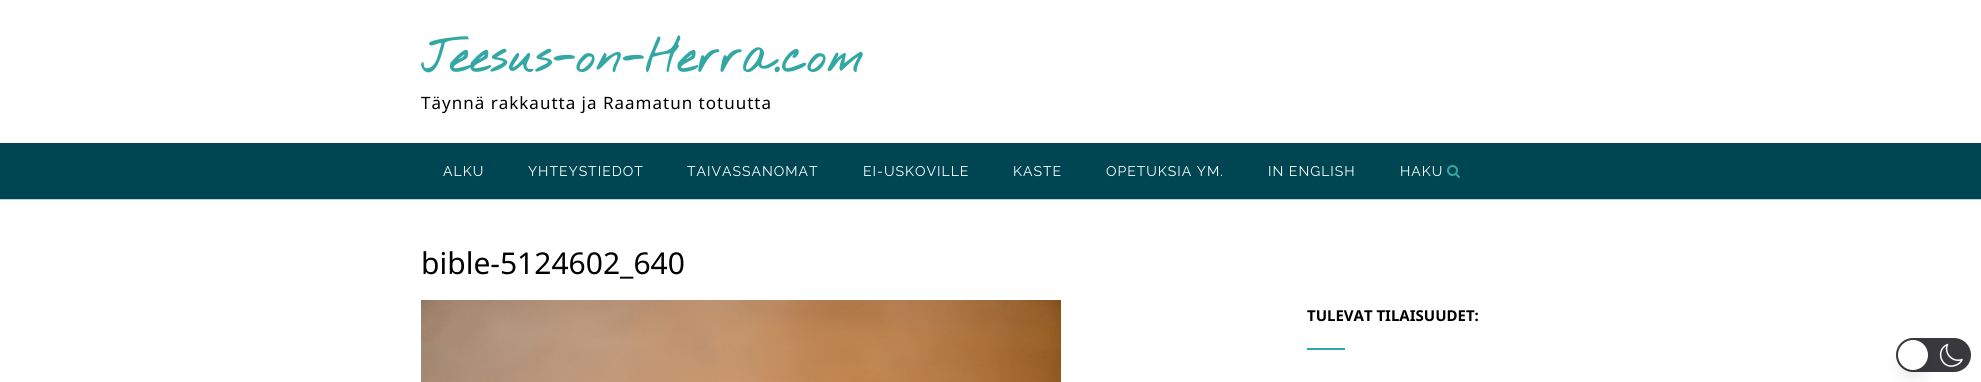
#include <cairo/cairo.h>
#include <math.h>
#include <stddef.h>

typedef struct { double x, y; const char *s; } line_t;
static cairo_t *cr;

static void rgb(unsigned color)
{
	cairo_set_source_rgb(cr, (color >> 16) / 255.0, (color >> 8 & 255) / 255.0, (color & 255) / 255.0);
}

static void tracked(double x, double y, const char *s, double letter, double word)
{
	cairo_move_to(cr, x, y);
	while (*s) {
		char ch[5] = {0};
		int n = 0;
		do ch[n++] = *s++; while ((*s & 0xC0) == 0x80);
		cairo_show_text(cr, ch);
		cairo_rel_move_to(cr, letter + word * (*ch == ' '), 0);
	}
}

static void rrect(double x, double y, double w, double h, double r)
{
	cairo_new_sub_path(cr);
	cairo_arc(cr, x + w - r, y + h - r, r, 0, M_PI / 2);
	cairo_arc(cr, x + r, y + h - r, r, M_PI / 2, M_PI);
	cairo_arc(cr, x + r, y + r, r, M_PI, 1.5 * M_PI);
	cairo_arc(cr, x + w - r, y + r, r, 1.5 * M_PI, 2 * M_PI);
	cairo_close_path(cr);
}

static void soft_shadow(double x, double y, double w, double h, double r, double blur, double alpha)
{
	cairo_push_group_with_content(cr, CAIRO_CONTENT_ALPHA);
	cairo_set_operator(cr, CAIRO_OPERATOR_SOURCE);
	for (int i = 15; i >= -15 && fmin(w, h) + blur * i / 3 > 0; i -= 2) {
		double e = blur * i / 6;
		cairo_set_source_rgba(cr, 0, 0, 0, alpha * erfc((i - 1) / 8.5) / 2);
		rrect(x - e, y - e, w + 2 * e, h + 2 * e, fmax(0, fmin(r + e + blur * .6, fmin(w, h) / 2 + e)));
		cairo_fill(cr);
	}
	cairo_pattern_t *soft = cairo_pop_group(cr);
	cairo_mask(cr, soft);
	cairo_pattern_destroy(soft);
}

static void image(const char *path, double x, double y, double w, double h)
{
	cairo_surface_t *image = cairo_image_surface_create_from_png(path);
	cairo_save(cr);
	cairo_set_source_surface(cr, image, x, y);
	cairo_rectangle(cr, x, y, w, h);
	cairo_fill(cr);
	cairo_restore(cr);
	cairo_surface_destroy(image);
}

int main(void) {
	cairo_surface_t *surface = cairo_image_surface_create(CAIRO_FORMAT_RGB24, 1981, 382);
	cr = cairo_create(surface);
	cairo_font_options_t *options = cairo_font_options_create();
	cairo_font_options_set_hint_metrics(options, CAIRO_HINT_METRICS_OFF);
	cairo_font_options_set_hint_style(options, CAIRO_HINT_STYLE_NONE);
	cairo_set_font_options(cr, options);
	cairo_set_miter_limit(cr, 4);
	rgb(0xffffff);
	cairo_paint(cr);
	rgb(0x004652);
	cairo_rectangle(cr, 0, 143, 1981, 56);
	cairo_fill(cr);
	rgb(0xcacfd0);
	cairo_rectangle(cr, 0, 199, 1981, 1);
	cairo_fill(cr);
	image("img/1.png", 1447, 165, 13, 13);
	image("img/2.png", 421, 300, 640, 82);
	rgb(0x33a7a4);
	cairo_rectangle(cr, 1307, 348, 38, 2);
	cairo_fill(cr);
	rgb(0x39393d);
	rrect(1896, 338, 75, 34, 17);
	cairo_fill(cr);
	cairo_new_path(cr);
	cairo_move_to(cr, 1962, 359.5);
	cairo_curve_to(cr, 1953, 363, 1943.5, 353.5, 1947.5, 344.5);
	cairo_curve_to(cr, 1934.5, 350, 1941.5, 370, 1955, 365.5);
	cairo_curve_to(cr, 1958, 364.5, 1961, 362.5, 1962, 359.5);
	cairo_close_path(cr);
	rgb(0xffffff);
	cairo_set_line_width(cr, 1.5);
	cairo_set_line_cap(cr, CAIRO_LINE_CAP_ROUND);
	cairo_set_line_join(cr, CAIRO_LINE_JOIN_ROUND);
	cairo_stroke(cr);
	image("img/3.png", 1927, 353, 1, 5);
	rgb(0x000000);
	soft_shadow(1901, 353, 24, 24, 12, 7.5, 0.1);
	rgb(0xffffff);
	cairo_arc(cr, 1913, 355, 15, 0, 2 * M_PI);
	cairo_fill(cr);
	cairo_select_font_face(cr, "Nothing You Could Do", CAIRO_FONT_SLANT_NORMAL, CAIRO_FONT_WEIGHT_BOLD);
	cairo_set_font_size(cr, 45);
	rgb(0x33a7a4);
	tracked(421, 72, "Jeesus-on-Herra.com", 1, 0);
	cairo_select_font_face(cr, "Noto Sans", CAIRO_FONT_SLANT_NORMAL, CAIRO_FONT_WEIGHT_NORMAL);
	cairo_set_font_size(cr, 17);
	rgb(0x000000);
	tracked(421, 109, "Täynnä rakkautta ja Raamatun totuutta", 1, 0);
	cairo_select_font_face(cr, "Raleway", CAIRO_FONT_SLANT_NORMAL, CAIRO_FONT_WEIGHT_NORMAL);
	cairo_set_font_size(cr, 14);
	rgb(0xffffff);
	{
		static const line_t items[] = {
			{443, 176, "ALKU"},
			{528, 176, "YHTEYSTIEDOT"},
			{687, 176, "TAIVASSANOMAT"},
			{863, 176, "EI-USKOVILLE"},
			{1013, 176, "KASTE"},
			{1106, 176, "OPETUKSIA YM."},
			{1268, 176, "IN ENGLISH"},
			{1400, 176, "HAKU"},
		};
		for (size_t i = 0; i < sizeof items / sizeof *items; i++) {
			tracked(items[i].x, items[i].y, items[i].s, 1, 0);
		}
	}
	cairo_select_font_face(cr, "Noto Sans", CAIRO_FONT_SLANT_NORMAL, CAIRO_FONT_WEIGHT_NORMAL);
	cairo_set_font_size(cr, 30);
	rgb(0x000000);
	cairo_move_to(cr, 421, 274);
	cairo_show_text(cr, "bible-5124602_640");
	cairo_select_font_face(cr, "Noto Sans", CAIRO_FONT_SLANT_NORMAL, CAIRO_FONT_WEIGHT_BOLD);
	cairo_set_font_size(cr, 15);
	cairo_move_to(cr, 1307, 321);
	cairo_show_text(cr, "TULEVAT TILAISUUDET:");
	cairo_surface_write_to_png(surface, "page.png");
	cairo_font_options_destroy(options);
	cairo_destroy(cr);
	cairo_surface_destroy(surface);
	return 0;
}
